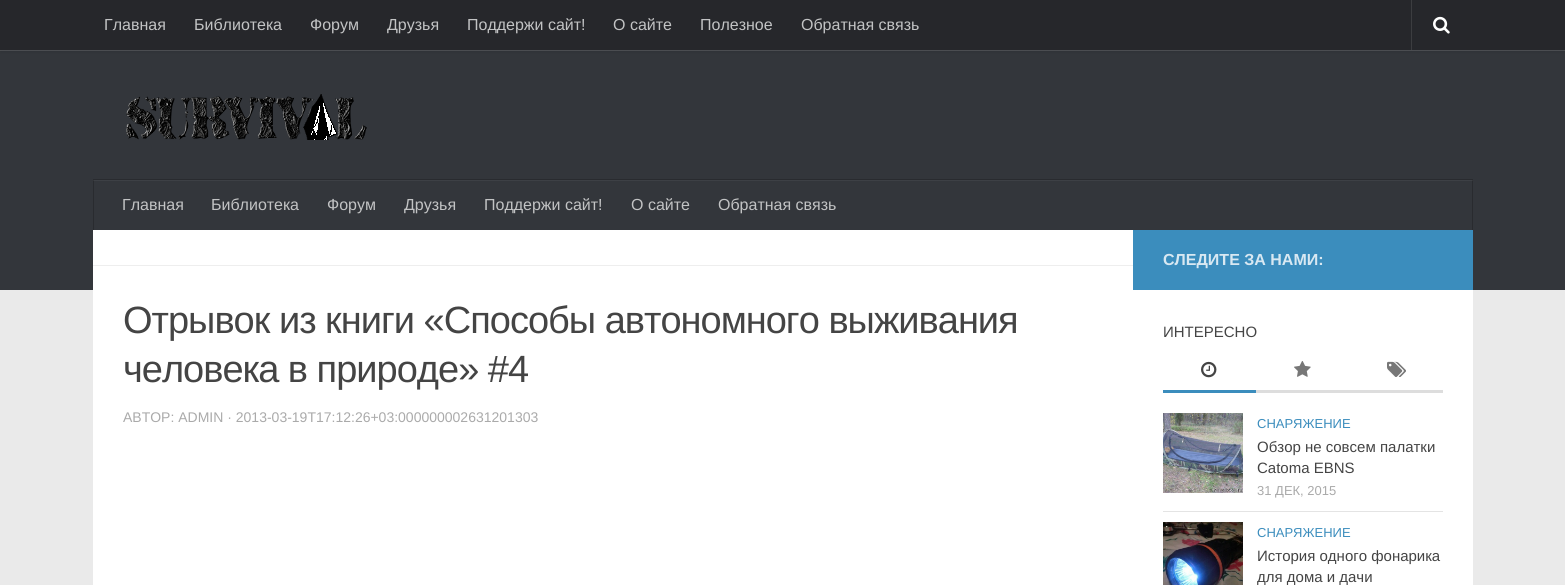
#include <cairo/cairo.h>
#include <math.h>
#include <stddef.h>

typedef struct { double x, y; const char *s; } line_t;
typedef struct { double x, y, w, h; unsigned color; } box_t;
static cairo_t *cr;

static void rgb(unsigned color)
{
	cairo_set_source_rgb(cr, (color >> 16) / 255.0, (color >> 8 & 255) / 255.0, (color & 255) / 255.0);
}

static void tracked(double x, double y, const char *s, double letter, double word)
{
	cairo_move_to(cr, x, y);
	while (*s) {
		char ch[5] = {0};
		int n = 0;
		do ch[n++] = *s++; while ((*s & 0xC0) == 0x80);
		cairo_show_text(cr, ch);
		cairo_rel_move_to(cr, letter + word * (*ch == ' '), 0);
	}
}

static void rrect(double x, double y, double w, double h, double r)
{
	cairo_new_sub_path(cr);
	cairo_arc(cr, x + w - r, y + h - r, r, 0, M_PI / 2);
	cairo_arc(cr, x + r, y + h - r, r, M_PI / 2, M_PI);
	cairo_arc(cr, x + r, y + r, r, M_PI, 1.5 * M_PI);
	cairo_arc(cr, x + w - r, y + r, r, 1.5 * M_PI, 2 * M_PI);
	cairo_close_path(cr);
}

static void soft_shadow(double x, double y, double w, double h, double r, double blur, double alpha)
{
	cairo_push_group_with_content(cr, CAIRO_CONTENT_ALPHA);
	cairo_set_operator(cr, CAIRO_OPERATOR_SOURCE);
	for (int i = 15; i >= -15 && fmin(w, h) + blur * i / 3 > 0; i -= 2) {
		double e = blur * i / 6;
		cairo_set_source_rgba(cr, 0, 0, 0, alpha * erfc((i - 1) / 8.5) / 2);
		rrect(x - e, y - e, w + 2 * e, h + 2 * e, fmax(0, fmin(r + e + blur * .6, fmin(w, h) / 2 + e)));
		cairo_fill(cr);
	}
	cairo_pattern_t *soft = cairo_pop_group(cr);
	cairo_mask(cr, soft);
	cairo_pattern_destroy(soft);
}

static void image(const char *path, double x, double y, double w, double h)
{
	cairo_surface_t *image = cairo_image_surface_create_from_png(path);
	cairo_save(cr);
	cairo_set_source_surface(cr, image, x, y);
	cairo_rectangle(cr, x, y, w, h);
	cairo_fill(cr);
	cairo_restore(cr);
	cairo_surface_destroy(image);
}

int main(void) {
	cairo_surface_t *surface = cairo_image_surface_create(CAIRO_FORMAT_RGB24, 1565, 585);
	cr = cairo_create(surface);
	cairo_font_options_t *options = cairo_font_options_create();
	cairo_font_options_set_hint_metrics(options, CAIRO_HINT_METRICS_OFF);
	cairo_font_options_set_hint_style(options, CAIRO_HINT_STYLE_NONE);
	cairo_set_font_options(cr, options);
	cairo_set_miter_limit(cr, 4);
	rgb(0xeaeaea);
	cairo_paint(cr);
	{
		static const box_t items[] = {
			{0, 51, 1565, 239, 0x33363b},
			{93, 180, 1380, 1, 0x3d4045},
			{0, 50, 1565, 1, 0x525458},
		};
		for (size_t i = 0; i < sizeof items / sizeof *items; i++) {
			rgb(items[i].color);
			cairo_rectangle(cr, items[i].x, items[i].y, items[i].w, items[i].h);
			cairo_fill(cr);
		}
	}
	rgb(0x000000);
	soft_shadow(0, 0, 1565, 50, 0, 2.5, 0.2);
	rgb(0x26272b);
	cairo_rectangle(cr, 0, 0, 1565, 50);
	cairo_fill(cr);
	rgb(0x3c3d40);
	cairo_rectangle(cr, 1411, 0, 1, 50);
	cairo_fill(cr);
	image("img/1.png", 1433, 16, 17, 18);
	image("img/2.png", 126, 94, 241, 46);
	{
		static const box_t items[] = {
			{93, 179, 1380, 1, 0x292b2f},
			{1472, 180, 1, 50, 0x292b2f},
			{1472, 180, 1, 1, 0x343639},
			{93, 180, 1, 50, 0x292b2f},
			{93, 180, 1, 1, 0x343639},
			{93, 230, 1380, 355, 0xffffff},
			{93, 265, 1040, 1, 0xeeeeee},
			{1133, 230, 340, 60, 0x3b8dbd},
			{1256, 390, 187, 3, 0xdddddd},
			{1163, 390, 93, 3, 0x3b8dbd},
		};
		for (size_t i = 0; i < sizeof items / sizeof *items; i++) {
			rgb(items[i].color);
			cairo_rectangle(cr, items[i].x, items[i].y, items[i].w, items[i].h);
			cairo_fill(cr);
		}
	}
	image("img/3.png", 1201, 361, 16, 17);
	image("img/4.png", 1294, 361, 17, 16);
	image("img/5.png", 1387, 361, 19, 16);
	rgb(0xe4e4e4);
	cairo_rectangle(cr, 1163, 511, 280, 1);
	cairo_fill(cr);
	image("img/6.png", 1163, 413, 80, 80);
	image("img/7.png", 1163, 522, 80, 63);
	cairo_select_font_face(cr, "Liberation Sans", CAIRO_FONT_SLANT_NORMAL, CAIRO_FONT_WEIGHT_NORMAL);
	cairo_set_font_size(cr, 16);
	rgb(0xc2c3c4);
	{
		static const line_t items[] = {
			{104, 30, "Главная"},
			{194, 30, "Библиотека"},
			{310, 30, "Форум"},
			{387, 30, "Друзья"},
			{467, 30, "Поддержи сайт!"},
			{613, 30, "О сайте"},
			{700, 30, "Полезное"},
			{801, 30, "Обратная связь"},
			{122, 210, "Главная"},
			{211, 210, "Библиотека"},
			{327, 210, "Форум"},
			{404, 210, "Друзья"},
			{484, 210, "Поддержи сайт!"},
			{631, 210, "О сайте"},
			{718, 210, "Обратная связь"},
		};
		for (size_t i = 0; i < sizeof items / sizeof *items; i++) {
			cairo_move_to(cr, items[i].x, items[i].y);
			cairo_show_text(cr, items[i].s);
		}
	}
	cairo_set_font_size(cr, 38);
	rgb(0x444444);
	tracked(123, 333, "Отрывок из книги «Способы автономного выживания", -1, 0);
	tracked(123, 382, "человека в природе» #4", -1, 0);
	cairo_set_font_size(cr, 14);
	rgb(0xaaaaaa);
	cairo_move_to(cr, 123, 422);
	cairo_show_text(cr, "АВТОР: ADMIN · 2013-03-19T17:12:26+03:000000002631201303");
	cairo_select_font_face(cr, "Liberation Sans", CAIRO_FONT_SLANT_NORMAL, CAIRO_FONT_WEIGHT_BOLD);
	cairo_set_font_size(cr, 16);
	rgb(0xd8e8f2);
	cairo_move_to(cr, 1163, 265);
	cairo_show_text(cr, "СЛЕДИТЕ ЗА НАМИ:");
	cairo_select_font_face(cr, "Liberation Sans", CAIRO_FONT_SLANT_NORMAL, CAIRO_FONT_WEIGHT_NORMAL);
	cairo_set_font_size(cr, 15);
	rgb(0x444444);
	cairo_move_to(cr, 1163, 337);
	cairo_show_text(cr, "ИНТЕРЕСНО");
	cairo_set_font_size(cr, 13);
	rgb(0x3b8dbd);
	cairo_move_to(cr, 1257, 428);
	cairo_show_text(cr, "СНАРЯЖЕНИЕ");
	cairo_set_font_size(cr, 15);
	rgb(0x444444);
	cairo_move_to(cr, 1257, 452);
	cairo_show_text(cr, "Обзор не совсем палатки");
	cairo_move_to(cr, 1257, 473);
	cairo_show_text(cr, "Catoma EBNS");
	cairo_set_font_size(cr, 13);
	rgb(0xaaaaaa);
	cairo_move_to(cr, 1257, 495);
	cairo_show_text(cr, "31 ДЕК, 2015");
	rgb(0x3b8dbd);
	cairo_move_to(cr, 1257, 537);
	cairo_show_text(cr, "СНАРЯЖЕНИЕ");
	cairo_set_font_size(cr, 15);
	rgb(0x444444);
	cairo_move_to(cr, 1257, 561);
	cairo_show_text(cr, "История одного фонарика");
	cairo_move_to(cr, 1257, 582);
	cairo_show_text(cr, "для дома и дачи");
	cairo_surface_write_to_png(surface, "page.png");
	cairo_font_options_destroy(options);
	cairo_destroy(cr);
	cairo_surface_destroy(surface);
	return 0;
}
